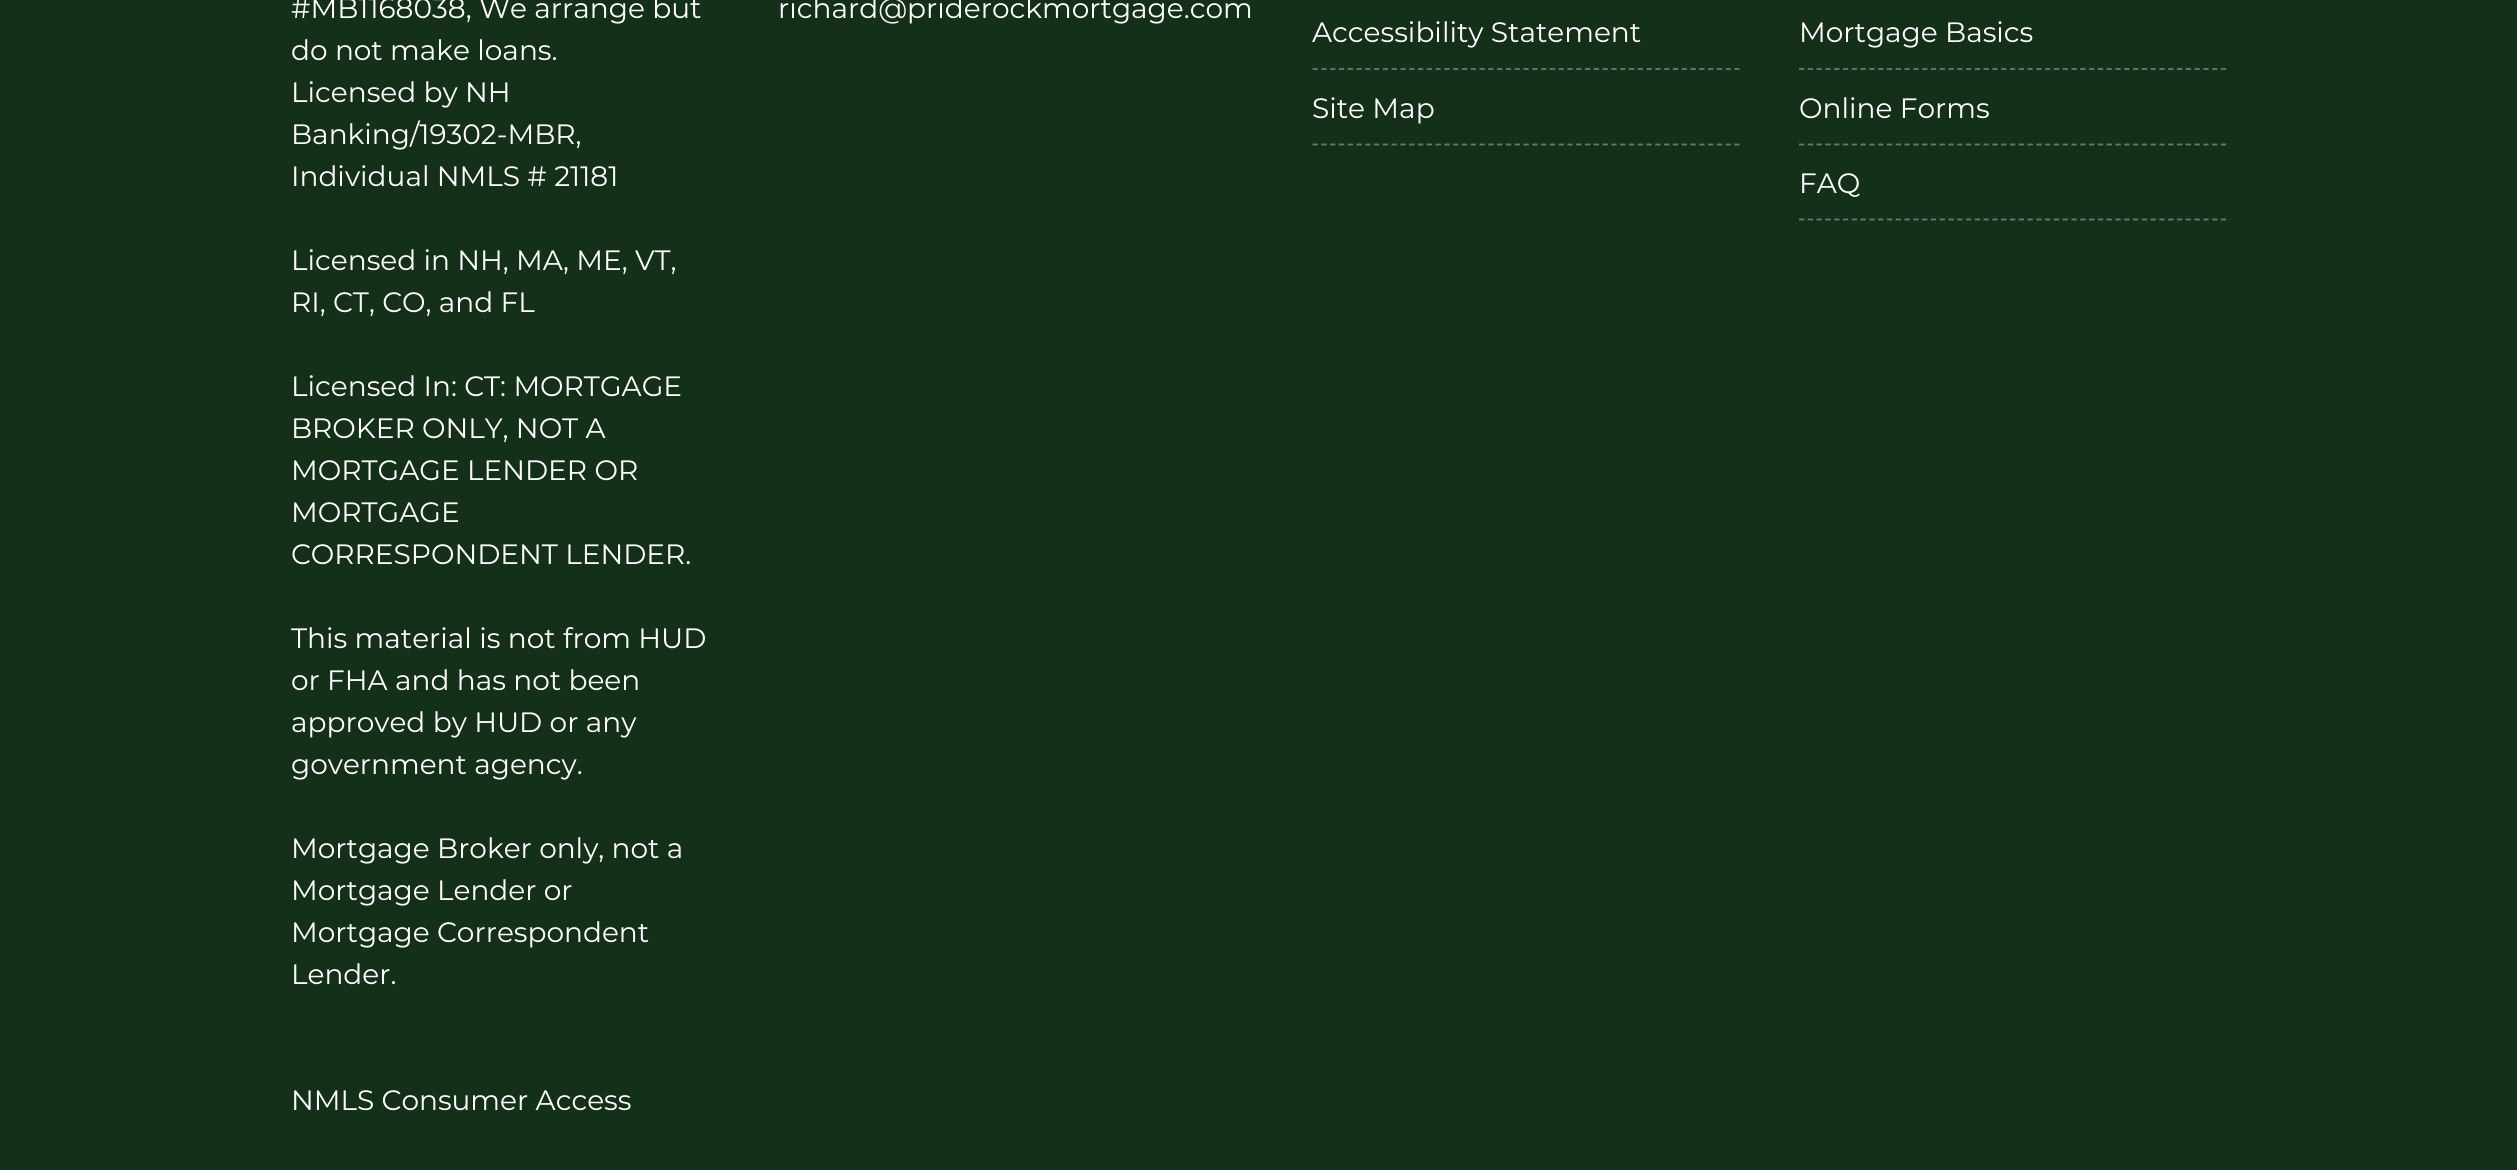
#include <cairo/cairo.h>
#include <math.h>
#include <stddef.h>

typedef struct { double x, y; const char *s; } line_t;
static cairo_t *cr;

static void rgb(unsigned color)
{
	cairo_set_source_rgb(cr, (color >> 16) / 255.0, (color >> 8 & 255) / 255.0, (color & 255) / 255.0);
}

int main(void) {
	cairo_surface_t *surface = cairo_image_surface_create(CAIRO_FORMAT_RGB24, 2517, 1170);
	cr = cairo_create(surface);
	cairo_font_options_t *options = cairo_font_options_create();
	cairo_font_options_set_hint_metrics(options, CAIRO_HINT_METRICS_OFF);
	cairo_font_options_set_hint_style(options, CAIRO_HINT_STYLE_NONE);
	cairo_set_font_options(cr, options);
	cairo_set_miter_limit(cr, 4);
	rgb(0x153018);
	cairo_paint(cr);
	cairo_new_path(cr);
	cairo_move_to(cr, 1312.5, 69);
	cairo_line_to(cr, 1739.5, 69);
	rgb(0x6c757d);
	cairo_set_line_width(cr, 1.8);
	cairo_set_dash(cr, (double[]){5.25, 3.54}, 2, 0);
	cairo_stroke(cr);
	cairo_new_path(cr);
	cairo_move_to(cr, 1312.5, 144.5);
	cairo_line_to(cr, 1739.5, 144.5);
	cairo_stroke(cr);
	cairo_new_path(cr);
	cairo_move_to(cr, 1799, 69);
	cairo_line_to(cr, 2226, 69);
	cairo_stroke(cr);
	cairo_new_path(cr);
	cairo_move_to(cr, 1799, 144.5);
	cairo_line_to(cr, 2226, 144.5);
	cairo_stroke(cr);
	cairo_new_path(cr);
	cairo_move_to(cr, 1799, 219.5);
	cairo_line_to(cr, 2226, 219.5);
	cairo_stroke(cr);
	cairo_select_font_face(cr, "Montserrat", CAIRO_FONT_SLANT_NORMAL, CAIRO_FONT_WEIGHT_NORMAL);
	cairo_set_font_size(cr, 28);
	rgb(0xffffff);
	{
		static const line_t items[] = {
			{291, 18, "#MB1168038, We arrange but"},
			{291, 60, "do not make loans."},
			{291, 102, "Licensed by NH"},
			{291, 144, "Banking/19302-MBR,"},
			{291, 186, "Individual NMLS # 21181"},
			{291, 270, "Licensed in NH, MA, ME, VT,"},
			{291, 312, "RI, CT, CO, and FL"},
			{291, 396, "Licensed In: CT: MORTGAGE"},
			{291, 438, "BROKER ONLY, NOT A"},
			{291, 480, "MORTGAGE LENDER OR"},
			{291, 522, "MORTGAGE"},
			{291, 564, "CORRESPONDENT LENDER."},
			{291, 648, "This material is not from HUD"},
			{291, 690, "or FHA and has not been"},
			{291, 732, "approved by HUD or any"},
			{291, 774, "government agency."},
			{291, 858, "Mortgage Broker only, not a"},
			{291, 900, "Mortgage Lender or"},
			{291, 942, "Mortgage Correspondent"},
			{291, 984, "Lender."},
			{291, 1110, "NMLS Consumer Access"},
			{778, 18, "richard@priderockmortgage.com"},
			{1312, 42, "Accessibility Statement"},
			{1312, 118, "Site Map"},
			{1799, 42, "Mortgage Basics"},
			{1799, 118, "Online Forms"},
			{1799, 193, "FAQ"},
		};
		for (size_t i = 0; i < sizeof items / sizeof *items; i++) {
			cairo_move_to(cr, items[i].x, items[i].y);
			cairo_show_text(cr, items[i].s);
		}
	}
	cairo_surface_write_to_png(surface, "page.png");
	cairo_font_options_destroy(options);
	cairo_destroy(cr);
	cairo_surface_destroy(surface);
	return 0;
}
